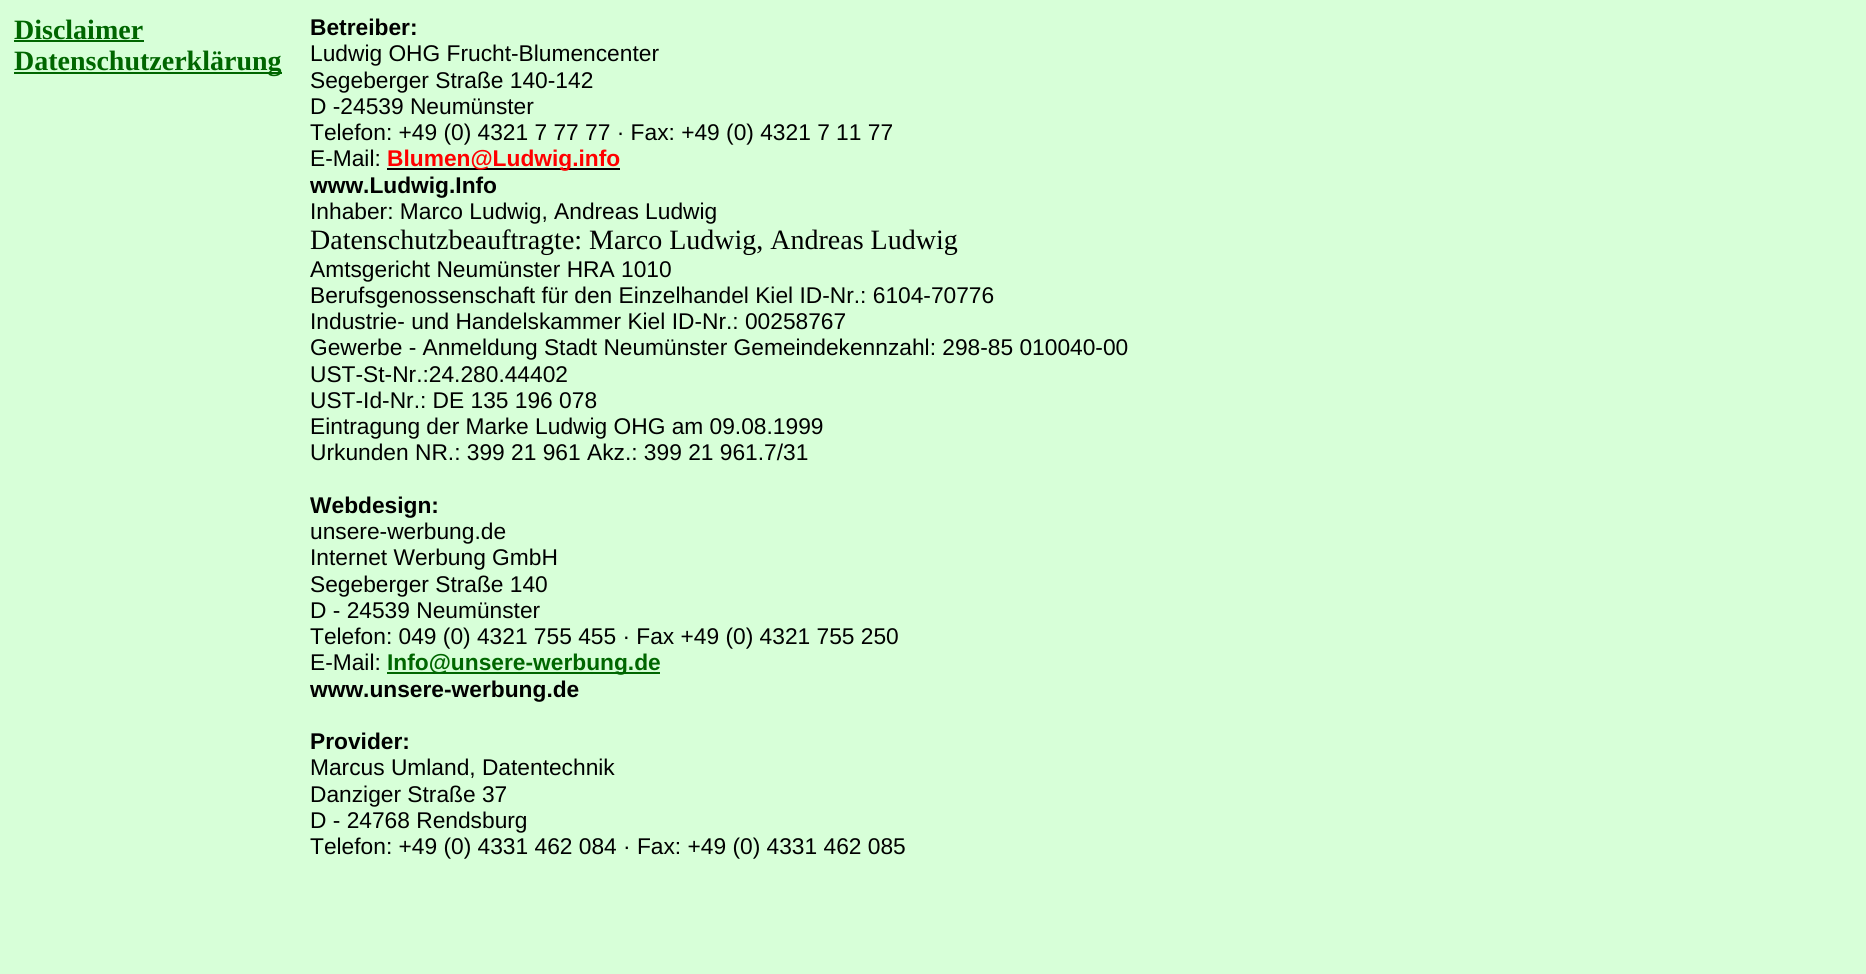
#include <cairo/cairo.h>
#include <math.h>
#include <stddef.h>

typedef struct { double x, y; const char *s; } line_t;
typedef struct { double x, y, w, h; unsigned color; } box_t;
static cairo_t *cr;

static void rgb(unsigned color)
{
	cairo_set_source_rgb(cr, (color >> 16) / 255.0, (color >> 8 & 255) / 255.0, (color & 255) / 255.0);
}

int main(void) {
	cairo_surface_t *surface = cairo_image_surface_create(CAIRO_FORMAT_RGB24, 1866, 974);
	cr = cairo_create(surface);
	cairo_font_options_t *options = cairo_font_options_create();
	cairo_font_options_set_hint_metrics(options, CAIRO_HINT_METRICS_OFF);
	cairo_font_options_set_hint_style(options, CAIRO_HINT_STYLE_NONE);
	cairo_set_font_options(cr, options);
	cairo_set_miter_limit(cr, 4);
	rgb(0xd7ffd8);
	cairo_paint(cr);
	{
		static const box_t items[] = {
			{14, 40, 130, 2, 0x006600},
			{14, 72, 268, 2, 0x006600},
			{387, 168, 233, 2, 0x000000},
			{387, 672, 273, 2, 0x006600},
		};
		for (size_t i = 0; i < sizeof items / sizeof *items; i++) {
			rgb(items[i].color);
			cairo_rectangle(cr, items[i].x, items[i].y, items[i].w, items[i].h);
			cairo_fill(cr);
		}
	}
	cairo_select_font_face(cr, "Liberation Serif", CAIRO_FONT_SLANT_NORMAL, CAIRO_FONT_WEIGHT_BOLD);
	cairo_set_font_size(cr, 28);
	cairo_move_to(cr, 14, 39);
	cairo_show_text(cr, "Disclaimer");
	cairo_move_to(cr, 14, 70);
	cairo_show_text(cr, "Datenschutzerklärung");
	cairo_select_font_face(cr, "Liberation Sans", CAIRO_FONT_SLANT_NORMAL, CAIRO_FONT_WEIGHT_BOLD);
	cairo_set_font_size(cr, 22.75);
	rgb(0x000000);
	cairo_move_to(cr, 310, 35);
	cairo_show_text(cr, "Betreiber:");
	cairo_select_font_face(cr, "Liberation Sans", CAIRO_FONT_SLANT_NORMAL, CAIRO_FONT_WEIGHT_NORMAL);
	{
		static const line_t items[] = {
			{310, 61, "Ludwig OHG Frucht-Blumencenter"},
			{310, 88, "Segeberger Straße 140-142"},
			{310, 114, "D -24539 Neumünster"},
			{310, 140, "Telefon: +49 (0) 4321 7 77 77 · Fax: +49 (0) 4321 7 11 77"},
			{310, 166, "E-Mail:"},
		};
		for (size_t i = 0; i < sizeof items / sizeof *items; i++) {
			cairo_move_to(cr, items[i].x, items[i].y);
			cairo_show_text(cr, items[i].s);
		}
	}
	cairo_select_font_face(cr, "Liberation Sans", CAIRO_FONT_SLANT_NORMAL, CAIRO_FONT_WEIGHT_BOLD);
	rgb(0xff0000);
	cairo_move_to(cr, 387, 166);
	cairo_show_text(cr, "Blumen@Ludwig.info");
	rgb(0x000000);
	cairo_move_to(cr, 310, 193);
	cairo_show_text(cr, "www.Ludwig.Info");
	cairo_select_font_face(cr, "Liberation Sans", CAIRO_FONT_SLANT_NORMAL, CAIRO_FONT_WEIGHT_NORMAL);
	cairo_move_to(cr, 310, 219);
	cairo_show_text(cr, "Inhaber: Marco Ludwig, Andreas Ludwig");
	cairo_select_font_face(cr, "Liberation Serif", CAIRO_FONT_SLANT_NORMAL, CAIRO_FONT_WEIGHT_NORMAL);
	cairo_set_font_size(cr, 28);
	cairo_move_to(cr, 310, 249);
	cairo_show_text(cr, "Datenschutzbeauftragte: Marco Ludwig, Andreas Ludwig");
	cairo_select_font_face(cr, "Liberation Sans", CAIRO_FONT_SLANT_NORMAL, CAIRO_FONT_WEIGHT_NORMAL);
	cairo_set_font_size(cr, 22.75);
	{
		static const line_t items[] = {
			{310, 277, "Amtsgericht Neumünster HRA 1010"},
			{310, 303, "Berufsgenossenschaft für den Einzelhandel Kiel ID-Nr.: 6104-70776"},
			{310, 329, "Industrie- und Handelskammer Kiel ID-Nr.: 00258767"},
			{310, 355, "Gewerbe - Anmeldung Stadt Neumünster Gemeindekennzahl: 298-85 010040-00"},
			{310, 382, "UST-St-Nr.:24.280.44402"},
			{310, 408, "UST-Id-Nr.: DE 135 196 078"},
			{310, 434, "Eintragung der Marke Ludwig OHG am 09.08.1999"},
			{310, 460, "Urkunden NR.: 399 21 961 Akz.: 399 21 961.7/31"},
		};
		for (size_t i = 0; i < sizeof items / sizeof *items; i++) {
			cairo_move_to(cr, items[i].x, items[i].y);
			cairo_show_text(cr, items[i].s);
		}
	}
	cairo_select_font_face(cr, "Liberation Sans", CAIRO_FONT_SLANT_NORMAL, CAIRO_FONT_WEIGHT_BOLD);
	cairo_move_to(cr, 310, 513);
	cairo_show_text(cr, "Webdesign:");
	cairo_select_font_face(cr, "Liberation Sans", CAIRO_FONT_SLANT_NORMAL, CAIRO_FONT_WEIGHT_NORMAL);
	{
		static const line_t items[] = {
			{310, 539, "unsere-werbung.de"},
			{310, 565, "Internet Werbung GmbH"},
			{310, 592, "Segeberger Straße 140"},
			{310, 618, "D - 24539 Neumünster"},
			{310, 644, "Telefon: 049 (0) 4321 755 455 · Fax +49 (0) 4321 755 250"},
			{310, 670, "E-Mail:"},
		};
		for (size_t i = 0; i < sizeof items / sizeof *items; i++) {
			cairo_move_to(cr, items[i].x, items[i].y);
			cairo_show_text(cr, items[i].s);
		}
	}
	cairo_select_font_face(cr, "Liberation Sans", CAIRO_FONT_SLANT_NORMAL, CAIRO_FONT_WEIGHT_BOLD);
	rgb(0x006600);
	cairo_move_to(cr, 387, 670);
	cairo_show_text(cr, "Info@unsere-werbung.de");
	rgb(0x000000);
	cairo_move_to(cr, 310, 697);
	cairo_show_text(cr, "www.unsere-werbung.de");
	cairo_move_to(cr, 310, 749);
	cairo_show_text(cr, "Provider:");
	cairo_select_font_face(cr, "Liberation Sans", CAIRO_FONT_SLANT_NORMAL, CAIRO_FONT_WEIGHT_NORMAL);
	{
		static const line_t items[] = {
			{310, 775, "Marcus Umland, Datentechnik"},
			{310, 802, "Danziger Straße 37"},
			{310, 828, "D - 24768 Rendsburg"},
			{310, 854, "Telefon: +49 (0) 4331 462 084 · Fax: +49 (0) 4331 462 085"},
		};
		for (size_t i = 0; i < sizeof items / sizeof *items; i++) {
			cairo_move_to(cr, items[i].x, items[i].y);
			cairo_show_text(cr, items[i].s);
		}
	}
	cairo_surface_write_to_png(surface, "page.png");
	cairo_font_options_destroy(options);
	cairo_destroy(cr);
	cairo_surface_destroy(surface);
	return 0;
}
